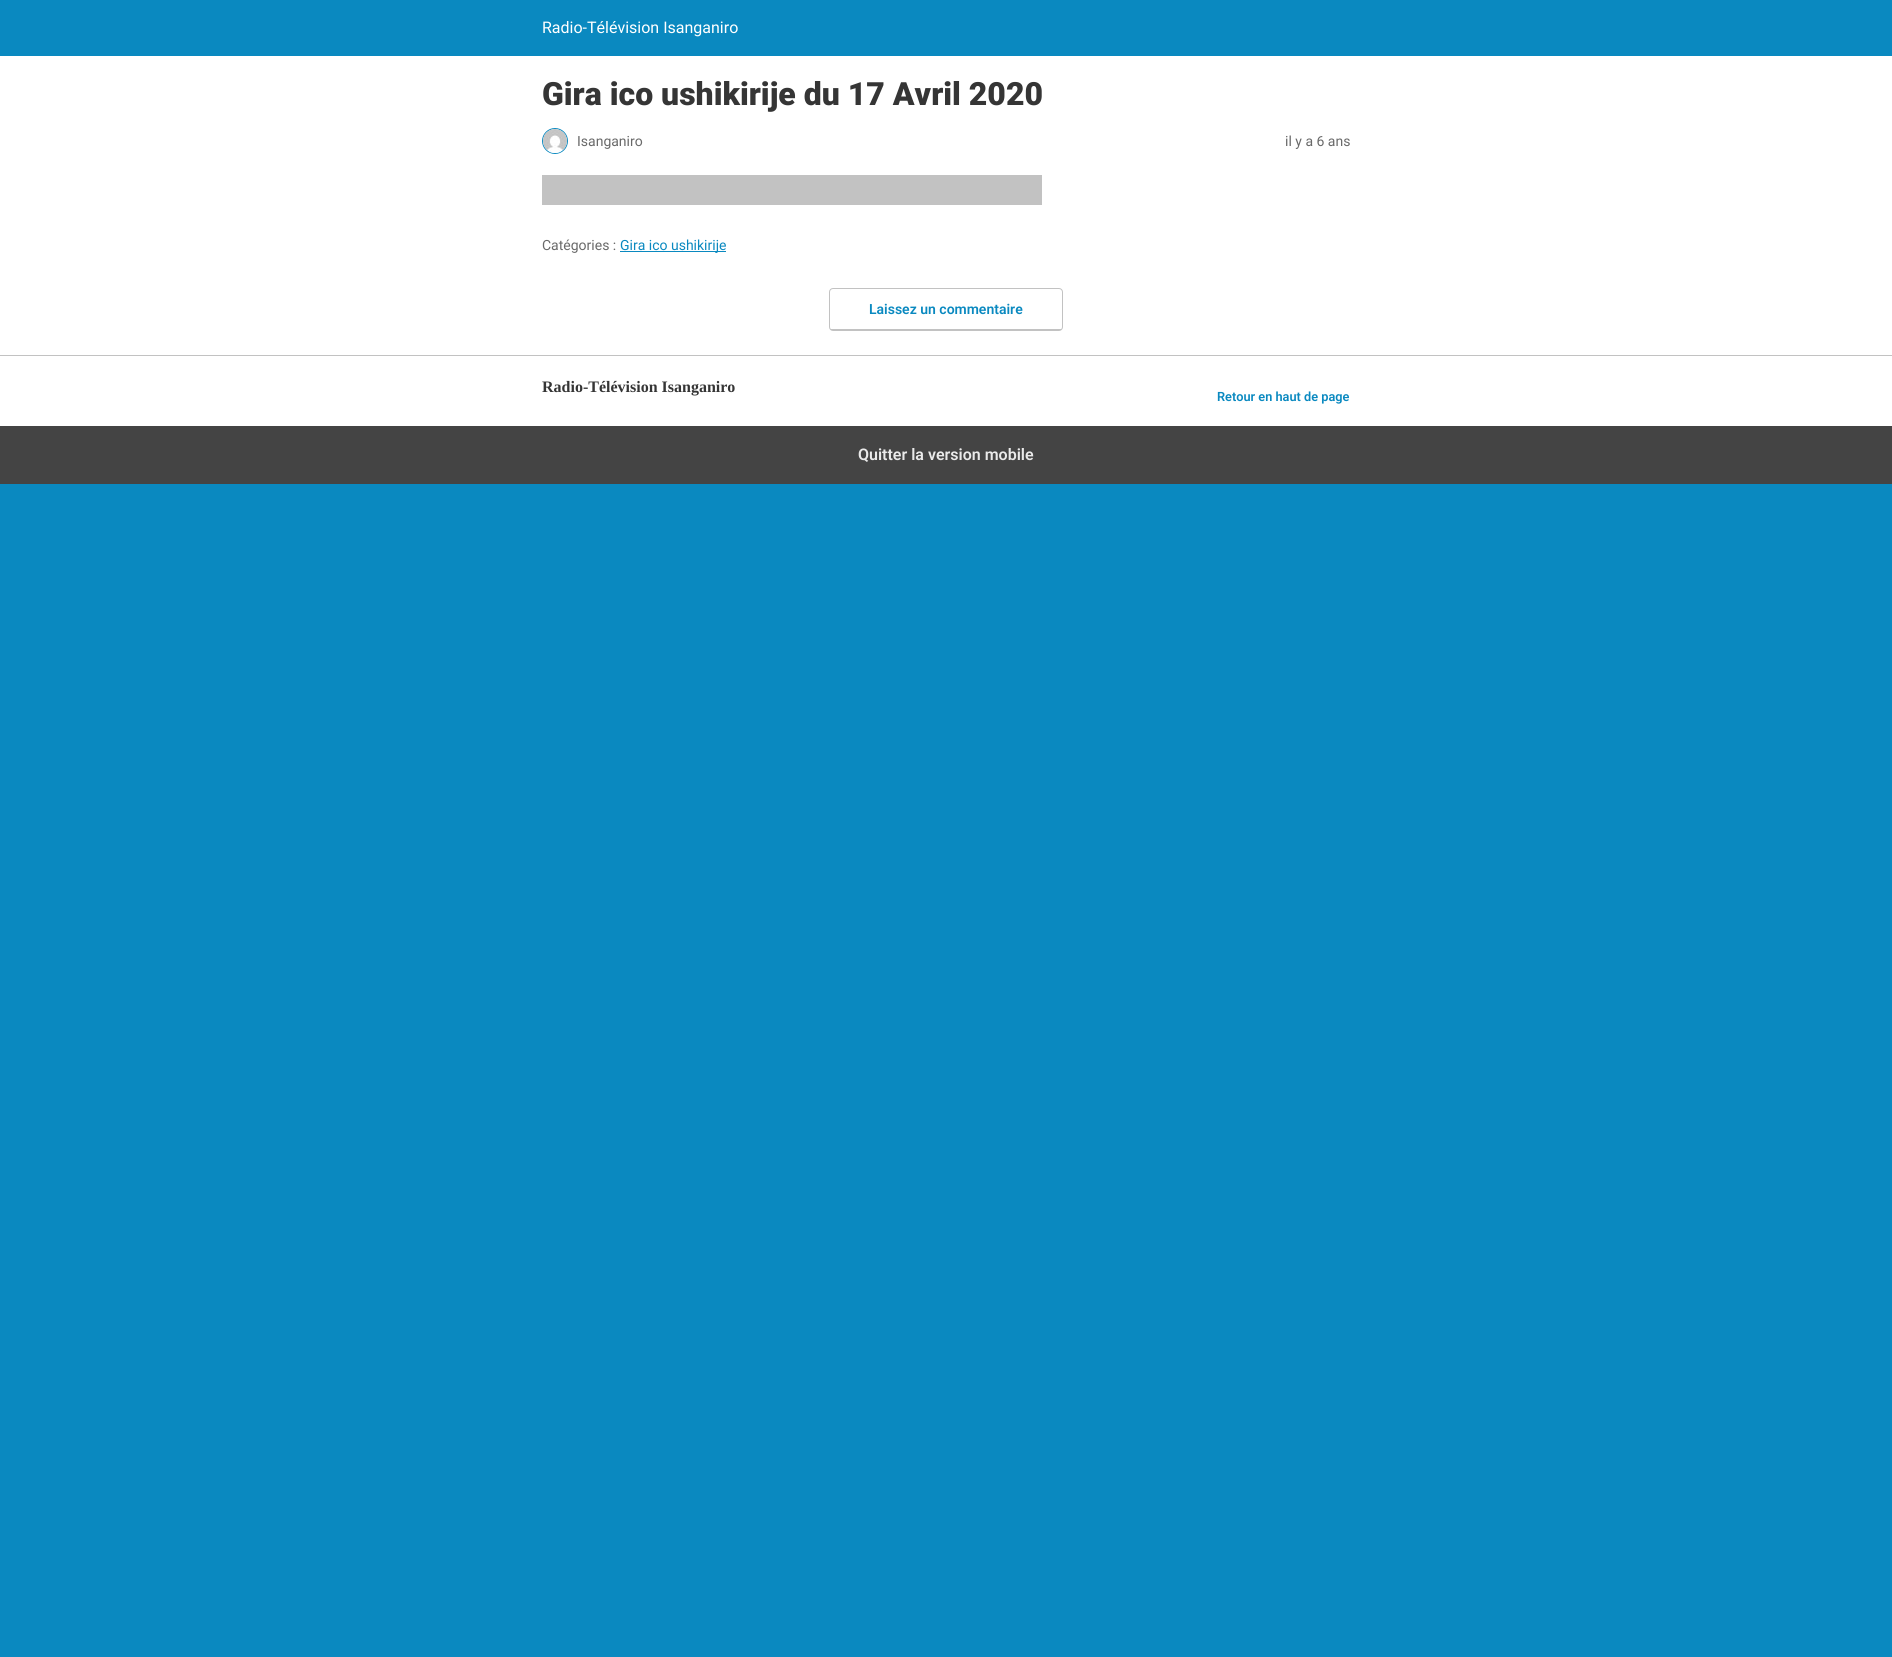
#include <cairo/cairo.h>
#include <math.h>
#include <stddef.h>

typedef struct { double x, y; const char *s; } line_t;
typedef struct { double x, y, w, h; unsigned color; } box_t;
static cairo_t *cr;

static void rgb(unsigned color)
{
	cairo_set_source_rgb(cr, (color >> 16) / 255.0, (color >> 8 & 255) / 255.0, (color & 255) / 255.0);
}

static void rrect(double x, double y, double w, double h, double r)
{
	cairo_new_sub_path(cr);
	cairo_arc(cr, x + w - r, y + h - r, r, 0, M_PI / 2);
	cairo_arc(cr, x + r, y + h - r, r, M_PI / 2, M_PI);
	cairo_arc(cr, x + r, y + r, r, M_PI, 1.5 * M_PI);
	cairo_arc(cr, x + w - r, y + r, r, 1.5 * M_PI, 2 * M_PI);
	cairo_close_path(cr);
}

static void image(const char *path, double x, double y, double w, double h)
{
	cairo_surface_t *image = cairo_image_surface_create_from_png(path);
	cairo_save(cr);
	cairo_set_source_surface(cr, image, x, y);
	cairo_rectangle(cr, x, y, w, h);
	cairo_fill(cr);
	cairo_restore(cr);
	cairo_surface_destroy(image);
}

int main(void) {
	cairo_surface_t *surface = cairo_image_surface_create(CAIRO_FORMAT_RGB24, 1892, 1657);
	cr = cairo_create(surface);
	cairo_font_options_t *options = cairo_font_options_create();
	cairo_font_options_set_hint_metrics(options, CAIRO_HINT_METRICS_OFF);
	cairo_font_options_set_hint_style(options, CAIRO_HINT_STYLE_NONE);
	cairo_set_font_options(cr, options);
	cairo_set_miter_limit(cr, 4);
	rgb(0x0a89c0);
	cairo_paint(cr);
	rgb(0xffffff);
	cairo_rectangle(cr, 0, 56, 1892, 370);
	cairo_fill(cr);
	cairo_arc(cr, 555, 141, 12.5, 0, 2 * M_PI);
	rgb(0x0a89c0);
	cairo_set_line_width(cr, 1);
	cairo_stroke(cr);
	image("img/1.png", 543, 129, 24, 24);
	rgb(0xc2c2c2);
	cairo_rectangle(cr, 542, 175, 500, 30);
	cairo_fill(cr);
	rgb(0x0a89c0);
	cairo_rectangle(cr, 620, 251, 106, 1);
	cairo_fill(cr);
	rrect(829.5, 288.5, 233, 42, 3.5);
	rgb(0xc2c2c2);
	cairo_stroke(cr);
	{
		static const box_t items[] = {
			{831, 329, 230, 1, 0xc2c2c2},
			{0, 355, 1892, 1, 0xc2c2c2},
			{0, 426, 1892, 58, 0x444444},
		};
		for (size_t i = 0; i < sizeof items / sizeof *items; i++) {
			rgb(items[i].color);
			cairo_rectangle(cr, items[i].x, items[i].y, items[i].w, items[i].h);
			cairo_fill(cr);
		}
	}
	cairo_select_font_face(cr, "Roboto", CAIRO_FONT_SLANT_NORMAL, CAIRO_FONT_WEIGHT_NORMAL);
	cairo_set_font_size(cr, 16);
	rgb(0xffffff);
	cairo_move_to(cr, 542, 33);
	cairo_show_text(cr, "Radio-Télévision Isanganiro");
	cairo_select_font_face(cr, "Roboto Black", CAIRO_FONT_SLANT_NORMAL, CAIRO_FONT_WEIGHT_NORMAL);
	cairo_set_font_size(cr, 32);
	rgb(0x353535);
	cairo_move_to(cr, 542, 105);
	cairo_show_text(cr, "Gira ico ushikirije du 17 Avril 2020");
	cairo_select_font_face(cr, "Roboto", CAIRO_FONT_SLANT_NORMAL, CAIRO_FONT_WEIGHT_NORMAL);
	cairo_set_font_size(cr, 14);
	rgb(0x696969);
	{
		static const line_t items[] = {
			{577, 146, "Isanganiro"},
			{1285, 146, "il y a 6 ans"},
			{542, 250, "Catégories :"},
		};
		for (size_t i = 0; i < sizeof items / sizeof *items; i++) {
			cairo_move_to(cr, items[i].x, items[i].y);
			cairo_show_text(cr, items[i].s);
		}
	}
	rgb(0x0a89c0);
	cairo_move_to(cr, 620, 250);
	cairo_show_text(cr, "Gira ico ushikirije");
	cairo_select_font_face(cr, "Roboto SemiBold", CAIRO_FONT_SLANT_NORMAL, CAIRO_FONT_WEIGHT_NORMAL);
	cairo_move_to(cr, 869, 314);
	cairo_show_text(cr, "Laissez un commentaire");
	cairo_select_font_face(cr, "Liberation Serif", CAIRO_FONT_SLANT_NORMAL, CAIRO_FONT_WEIGHT_BOLD);
	cairo_set_font_size(cr, 16);
	rgb(0x353535);
	cairo_move_to(cr, 542, 392);
	cairo_show_text(cr, "Radio-Télévision Isanganiro");
	cairo_select_font_face(cr, "Roboto SemiBold", CAIRO_FONT_SLANT_NORMAL, CAIRO_FONT_WEIGHT_NORMAL);
	cairo_set_font_size(cr, 12.75);
	rgb(0x0a89c0);
	cairo_move_to(cr, 1217, 401);
	cairo_show_text(cr, "Retour en haut de page");
	cairo_set_font_size(cr, 16);
	rgb(0xeaeaea);
	cairo_move_to(cr, 858, 460);
	cairo_show_text(cr, "Quitter la version mobile");
	cairo_surface_write_to_png(surface, "page.png");
	cairo_font_options_destroy(options);
	cairo_destroy(cr);
	cairo_surface_destroy(surface);
	return 0;
}
